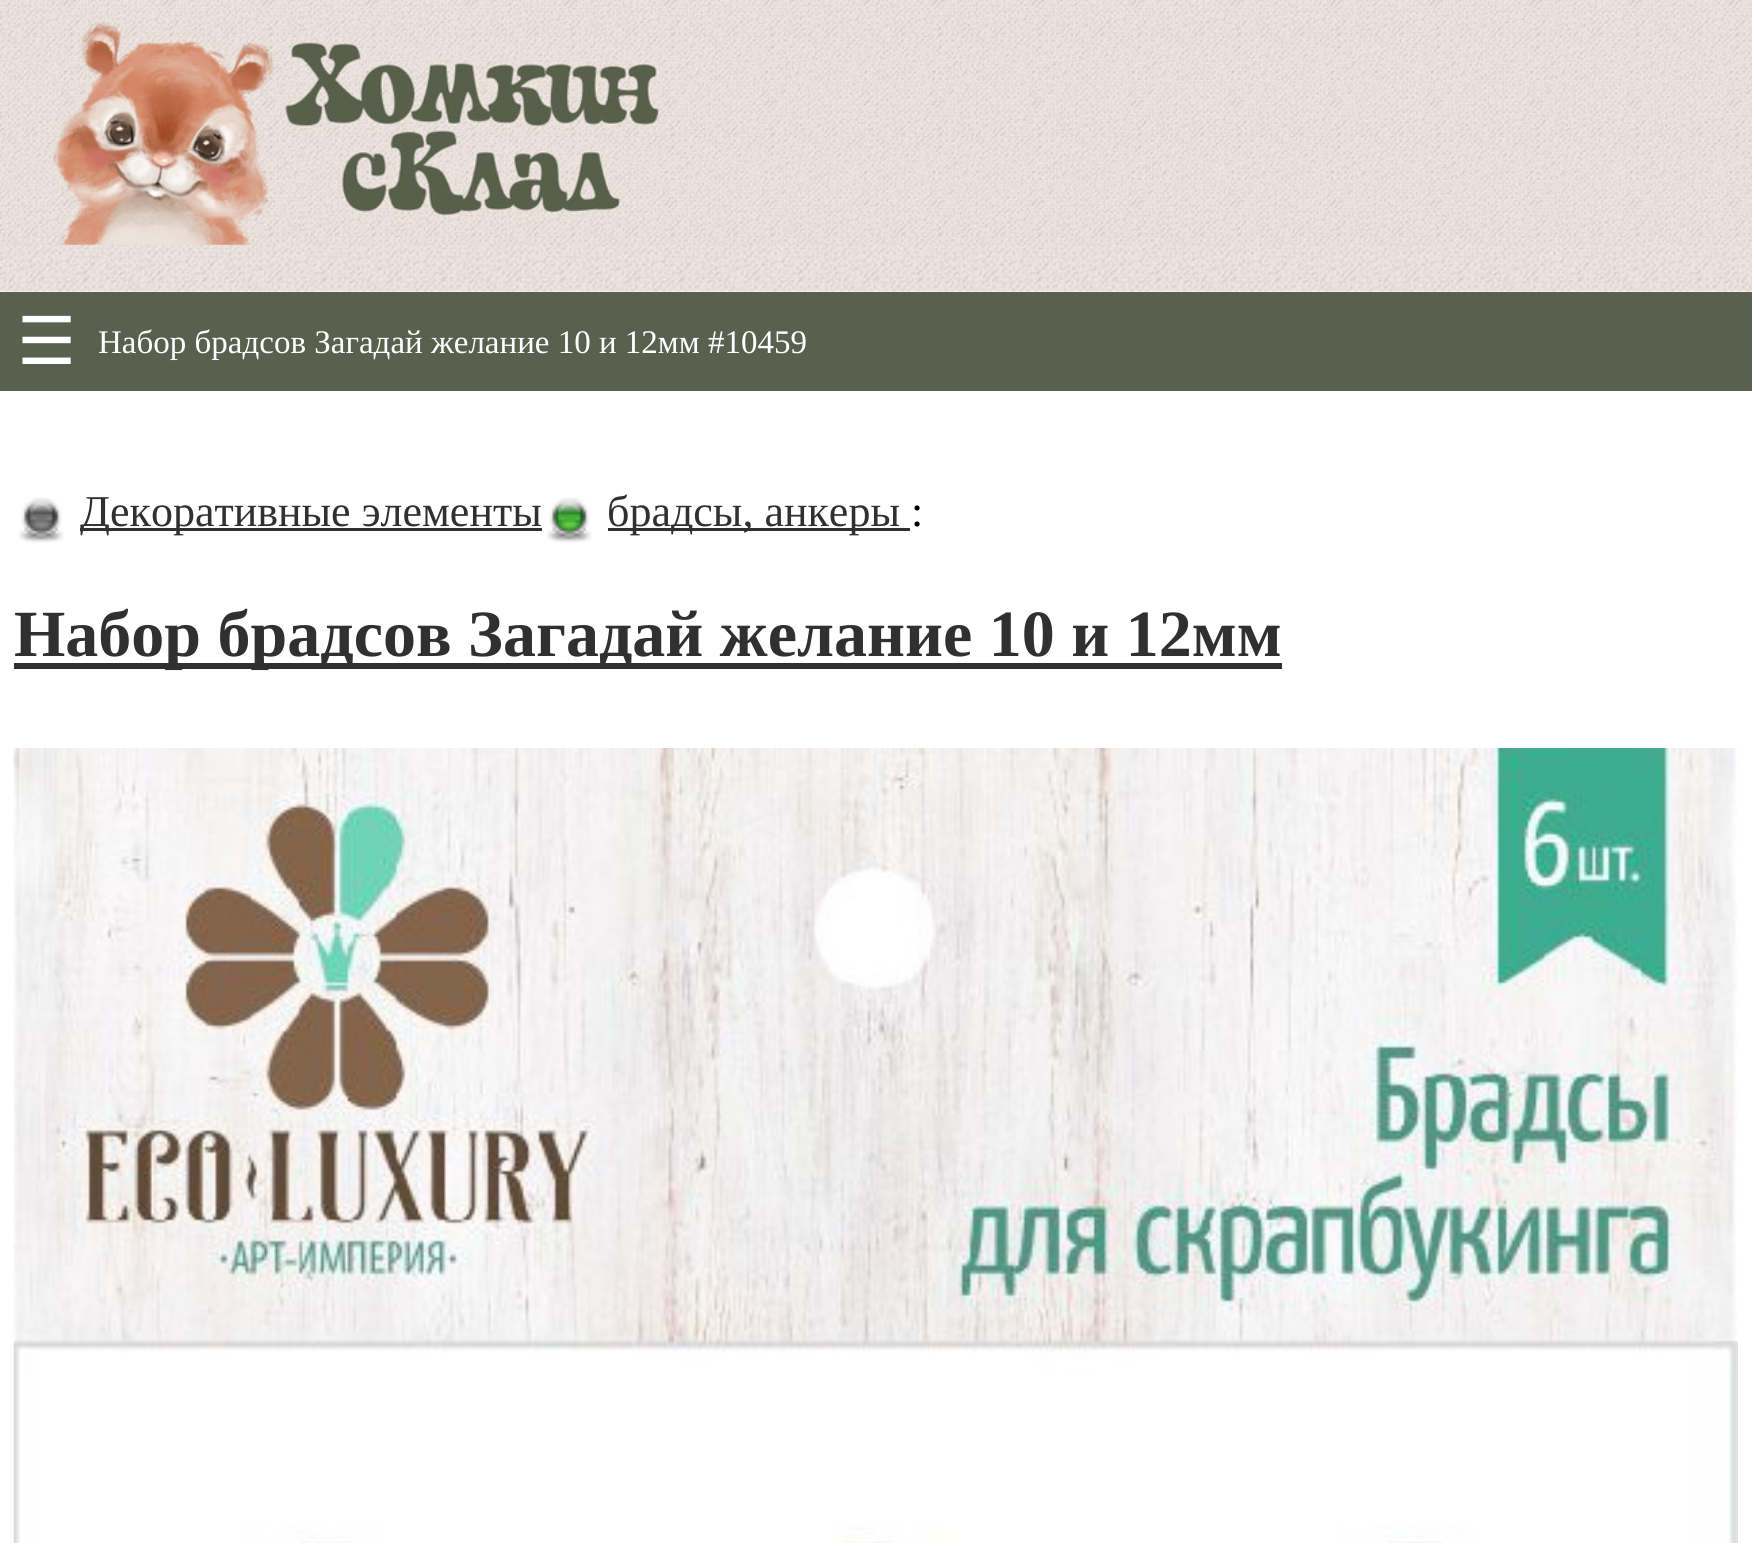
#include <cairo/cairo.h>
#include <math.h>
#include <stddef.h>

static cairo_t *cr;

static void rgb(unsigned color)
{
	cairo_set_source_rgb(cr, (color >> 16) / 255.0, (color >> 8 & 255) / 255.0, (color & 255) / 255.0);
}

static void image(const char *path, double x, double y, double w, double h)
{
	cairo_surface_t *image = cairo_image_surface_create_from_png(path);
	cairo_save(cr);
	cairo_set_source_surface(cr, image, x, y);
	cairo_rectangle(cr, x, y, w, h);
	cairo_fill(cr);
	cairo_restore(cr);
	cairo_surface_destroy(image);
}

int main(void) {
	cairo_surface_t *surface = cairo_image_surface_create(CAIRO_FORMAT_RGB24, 1752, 1543);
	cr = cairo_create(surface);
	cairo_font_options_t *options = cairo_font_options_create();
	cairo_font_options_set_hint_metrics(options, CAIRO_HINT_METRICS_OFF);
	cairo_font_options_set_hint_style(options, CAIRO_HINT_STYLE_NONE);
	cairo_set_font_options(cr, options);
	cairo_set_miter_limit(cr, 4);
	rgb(0xffffff);
	cairo_paint(cr);
	image("img/1.png", 0, 0, 1752, 292);
	rgb(0x59604e);
	cairo_rectangle(cr, 0, 292, 1752, 99);
	cairo_fill(cr);
	image("img/2.png", 18, 497, 46, 46);
	rgb(0x303030);
	cairo_rectangle(cr, 80, 528, 462, 3);
	cairo_fill(cr);
	image("img/3.png", 546, 497, 46, 46);
	cairo_rectangle(cr, 608, 528, 302, 3);
	cairo_fill(cr);
	cairo_rectangle(cr, 14, 663, 1268, 6);
	cairo_fill(cr);
	image("img/4.png", 13, 748, 1725, 795);
	cairo_select_font_face(cr, "DejaVu Sans", CAIRO_FONT_SLANT_NORMAL, CAIRO_FONT_WEIGHT_NORMAL);
	cairo_set_font_size(cr, 66);
	rgb(0xffffff);
	cairo_move_to(cr, 17, 364);
	cairo_show_text(cr, "☰");
	cairo_select_font_face(cr, "Liberation Serif", CAIRO_FONT_SLANT_NORMAL, CAIRO_FONT_WEIGHT_NORMAL);
	cairo_set_font_size(cr, 33);
	cairo_move_to(cr, 98, 353);
	cairo_show_text(cr, "Набор брадсов Загадай желание 10 и 12мм #10459");
	cairo_set_font_size(cr, 44);
	rgb(0x303030);
	cairo_move_to(cr, 80, 526);
	cairo_show_text(cr, "Декоративные элементы");
	cairo_move_to(cr, 607, 526);
	cairo_show_text(cr, "брадсы, анкеры");
	rgb(0x000000);
	cairo_move_to(cr, 911, 526);
	cairo_show_text(cr, ":");
	cairo_select_font_face(cr, "Liberation Serif", CAIRO_FONT_SLANT_NORMAL, CAIRO_FONT_WEIGHT_BOLD);
	cairo_set_font_size(cr, 66);
	rgb(0x303030);
	cairo_move_to(cr, 14, 656);
	cairo_show_text(cr, "Набор брадсов Загадай желание 10 и 12мм");
	cairo_surface_write_to_png(surface, "page.png");
	cairo_font_options_destroy(options);
	cairo_destroy(cr);
	cairo_surface_destroy(surface);
	return 0;
}
